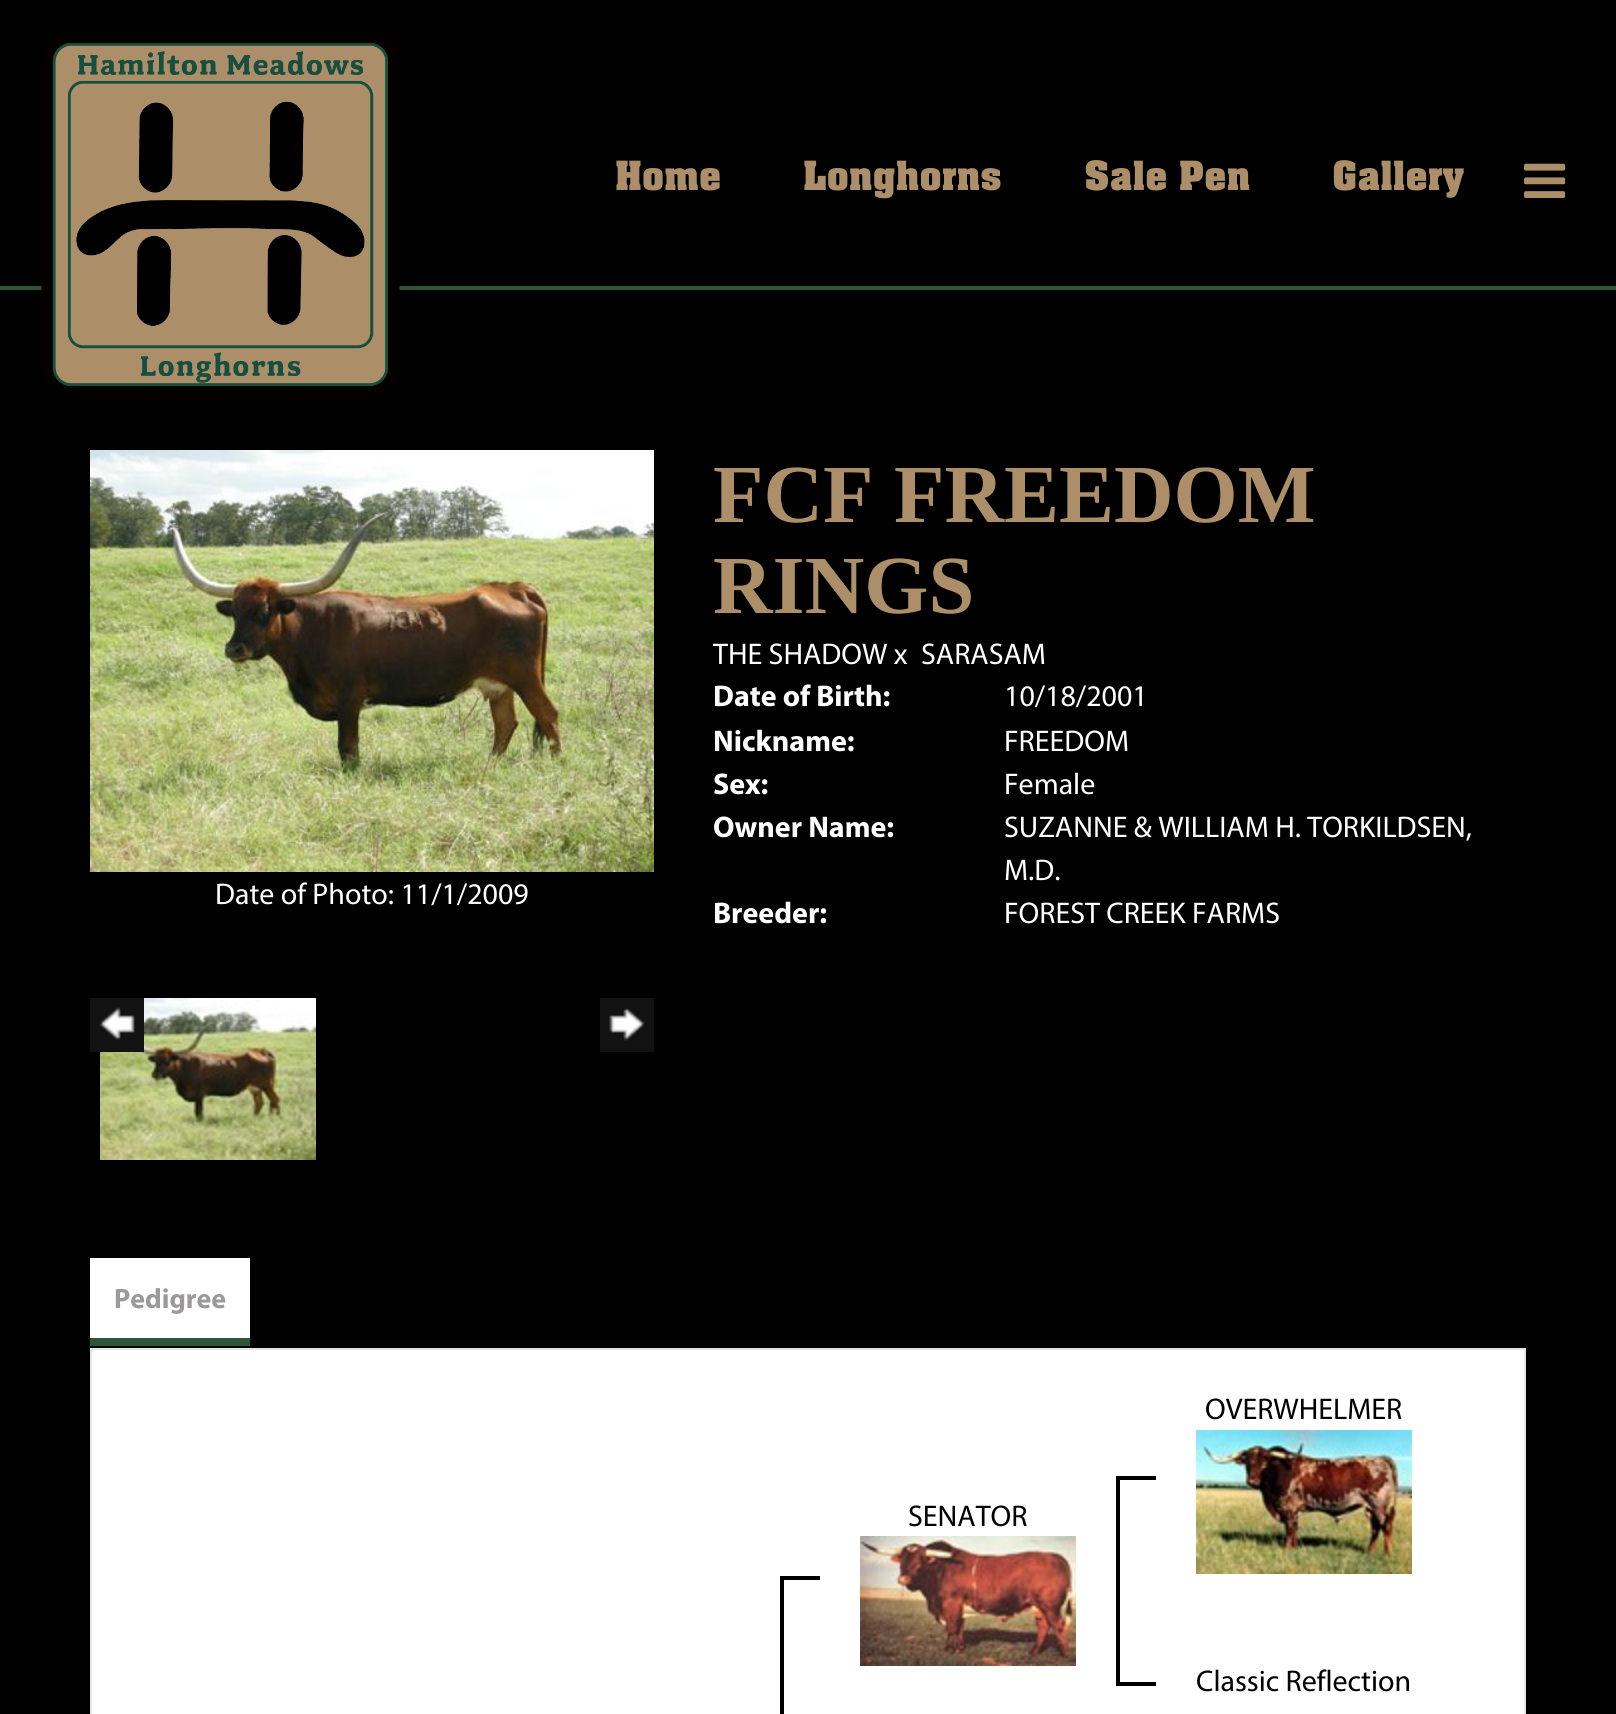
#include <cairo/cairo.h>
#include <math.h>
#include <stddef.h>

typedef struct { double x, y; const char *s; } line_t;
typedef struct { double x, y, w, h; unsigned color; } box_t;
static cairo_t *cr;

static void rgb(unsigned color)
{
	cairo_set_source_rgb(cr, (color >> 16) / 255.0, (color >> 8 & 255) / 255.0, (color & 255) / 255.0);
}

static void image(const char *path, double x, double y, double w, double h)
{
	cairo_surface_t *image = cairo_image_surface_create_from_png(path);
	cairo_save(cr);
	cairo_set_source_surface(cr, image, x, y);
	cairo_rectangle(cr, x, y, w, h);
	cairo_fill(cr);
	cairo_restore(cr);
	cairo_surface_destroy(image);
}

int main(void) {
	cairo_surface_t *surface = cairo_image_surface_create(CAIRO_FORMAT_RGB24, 1616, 1714);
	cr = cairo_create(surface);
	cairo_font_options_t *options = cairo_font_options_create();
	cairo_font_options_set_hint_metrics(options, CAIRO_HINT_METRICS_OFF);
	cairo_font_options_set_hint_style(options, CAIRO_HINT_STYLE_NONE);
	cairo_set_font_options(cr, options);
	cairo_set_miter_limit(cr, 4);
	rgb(0x000000);
	cairo_paint(cr);
	rgb(0x2e5539);
	cairo_rectangle(cr, 0, 286, 1616, 4);
	cairo_fill(cr);
	image("img/1.png", 41, 32, 359, 365);
	image("img/2.png", 1524, 163, 42, 35);
	image("img/3.png", 90, 450, 564, 422);
	image("img/5.png", 100, 998, 216, 162);
	image("img/4.png", 90, 998, 54, 54);
	image("img/6.png", 600, 998, 54, 54);
	{
		static const box_t items[] = {
			{90, 1348, 1436, 2, 0xe5e5e5},
			{90, 1338, 160, 8, 0x2e5539},
			{90, 1258, 160, 80, 0xffffff},
			{92, 1350, 1432, 364, 0xffffff},
		};
		for (size_t i = 0; i < sizeof items / sizeof *items; i++) {
			rgb(items[i].color);
			cairo_rectangle(cr, items[i].x, items[i].y, items[i].w, items[i].h);
			cairo_fill(cr);
		}
	}
	rgb(0xe5e5e5);
	cairo_new_path(cr);
	cairo_move_to(cr, 1526, 1350);
	cairo_line_to(cr, 1524, 1350);
	cairo_line_to(cr, 1524, 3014);
	cairo_line_to(cr, 1525, 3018);
	cairo_line_to(cr, 1526, 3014);
	cairo_close_path(cr);
	cairo_fill(cr);
	cairo_new_path(cr);
	cairo_move_to(cr, 90, 1350);
	cairo_line_to(cr, 92, 1350);
	cairo_line_to(cr, 92, 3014);
	cairo_line_to(cr, 91, 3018);
	cairo_line_to(cr, 90, 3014);
	cairo_close_path(cr);
	cairo_fill(cr);
	image("img/7.png", 1196, 1430, 216, 144);
	image("img/8.png", 860, 1536, 216, 130);
	{
		static const box_t items[] = {
			{1116, 1476, 40, 4, 0x000000},
			{1116, 1682, 40, 4, 0x000000},
			{1116, 1476, 4, 210, 0x000000},
			{780, 1576, 40, 4, 0x000000},
			{780, 1576, 4, 138, 0x000000},
		};
		for (size_t i = 0; i < sizeof items / sizeof *items; i++) {
			rgb(items[i].color);
			cairo_rectangle(cr, items[i].x, items[i].y, items[i].w, items[i].h);
			cairo_fill(cr);
		}
	}
	cairo_select_font_face(cr, "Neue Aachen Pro", CAIRO_FONT_SLANT_NORMAL, CAIRO_FONT_WEIGHT_BOLD);
	cairo_set_font_size(cr, 44);
	rgb(0xac8e68);
	{
		static const line_t items[] = {
			{615, 190, "Home"},
			{803, 190, "Longhorns"},
			{1084, 190, "Sale Pen"},
			{1332, 190, "Gallery"},
		};
		for (size_t i = 0; i < sizeof items / sizeof *items; i++) {
			cairo_move_to(cr, items[i].x, items[i].y);
			cairo_show_text(cr, items[i].s);
		}
	}
	cairo_select_font_face(cr, "Myriad", CAIRO_FONT_SLANT_NORMAL, CAIRO_FONT_WEIGHT_NORMAL);
	cairo_set_font_size(cr, 30);
	rgb(0xffffff);
	cairo_move_to(cr, 215, 904);
	cairo_show_text(cr, "Date of Photo: 11/1/2009");
	cairo_select_font_face(cr, "Liberation Serif", CAIRO_FONT_SLANT_NORMAL, CAIRO_FONT_WEIGHT_BOLD);
	cairo_set_font_size(cr, 82.5);
	rgb(0xac8e68);
	cairo_move_to(cr, 713, 522);
	cairo_show_text(cr, "FCF FREEDOM");
	cairo_move_to(cr, 713, 613);
	cairo_show_text(cr, "RINGS");
	cairo_select_font_face(cr, "Myriad", CAIRO_FONT_SLANT_NORMAL, CAIRO_FONT_WEIGHT_NORMAL);
	cairo_set_font_size(cr, 30);
	rgb(0xffffff);
	cairo_move_to(cr, 713, 664);
	cairo_show_text(cr, "THE SHADOW x");
	cairo_move_to(cr, 921, 664);
	cairo_show_text(cr, "SARASAM");
	cairo_select_font_face(cr, "Myriad", CAIRO_FONT_SLANT_NORMAL, CAIRO_FONT_WEIGHT_BOLD);
	cairo_move_to(cr, 713, 706);
	cairo_show_text(cr, "Date of Birth:");
	cairo_select_font_face(cr, "Myriad", CAIRO_FONT_SLANT_NORMAL, CAIRO_FONT_WEIGHT_NORMAL);
	cairo_move_to(cr, 1004, 706);
	cairo_show_text(cr, "10/18/2001");
	cairo_select_font_face(cr, "Myriad", CAIRO_FONT_SLANT_NORMAL, CAIRO_FONT_WEIGHT_BOLD);
	cairo_move_to(cr, 713, 751);
	cairo_show_text(cr, "Nickname:");
	cairo_select_font_face(cr, "Myriad", CAIRO_FONT_SLANT_NORMAL, CAIRO_FONT_WEIGHT_NORMAL);
	cairo_move_to(cr, 1004, 751);
	cairo_show_text(cr, "FREEDOM");
	cairo_select_font_face(cr, "Myriad", CAIRO_FONT_SLANT_NORMAL, CAIRO_FONT_WEIGHT_BOLD);
	cairo_move_to(cr, 713, 794);
	cairo_show_text(cr, "Sex:");
	cairo_select_font_face(cr, "Myriad", CAIRO_FONT_SLANT_NORMAL, CAIRO_FONT_WEIGHT_NORMAL);
	cairo_move_to(cr, 1004, 794);
	cairo_show_text(cr, "Female");
	cairo_select_font_face(cr, "Myriad", CAIRO_FONT_SLANT_NORMAL, CAIRO_FONT_WEIGHT_BOLD);
	cairo_move_to(cr, 713, 837);
	cairo_show_text(cr, "Owner Name:");
	cairo_select_font_face(cr, "Myriad", CAIRO_FONT_SLANT_NORMAL, CAIRO_FONT_WEIGHT_NORMAL);
	cairo_move_to(cr, 1004, 837);
	cairo_show_text(cr, "SUZANNE & WILLIAM H. TORKILDSEN,");
	cairo_move_to(cr, 1004, 880);
	cairo_show_text(cr, "M.D.");
	cairo_select_font_face(cr, "Myriad", CAIRO_FONT_SLANT_NORMAL, CAIRO_FONT_WEIGHT_BOLD);
	cairo_move_to(cr, 713, 923);
	cairo_show_text(cr, "Breeder:");
	cairo_select_font_face(cr, "Myriad", CAIRO_FONT_SLANT_NORMAL, CAIRO_FONT_WEIGHT_NORMAL);
	cairo_move_to(cr, 1004, 923);
	cairo_show_text(cr, "FOREST CREEK FARMS");
	cairo_select_font_face(cr, "Myriad", CAIRO_FONT_SLANT_NORMAL, CAIRO_FONT_WEIGHT_BOLD);
	cairo_set_font_size(cr, 28);
	rgb(0x9b9999);
	cairo_move_to(cr, 114, 1308);
	cairo_show_text(cr, "Pedigree");
	cairo_select_font_face(cr, "Myriad", CAIRO_FONT_SLANT_NORMAL, CAIRO_FONT_WEIGHT_NORMAL);
	cairo_set_font_size(cr, 30);
	rgb(0x000000);
	{
		static const line_t items[] = {
			{1205, 1419, "OVERWHELMER"},
			{908, 1526, "SENATOR"},
			{1196, 1691, "Classic Reflection"},
		};
		for (size_t i = 0; i < sizeof items / sizeof *items; i++) {
			cairo_move_to(cr, items[i].x, items[i].y);
			cairo_show_text(cr, items[i].s);
		}
	}
	cairo_surface_write_to_png(surface, "page.png");
	cairo_font_options_destroy(options);
	cairo_destroy(cr);
	cairo_surface_destroy(surface);
	return 0;
}
